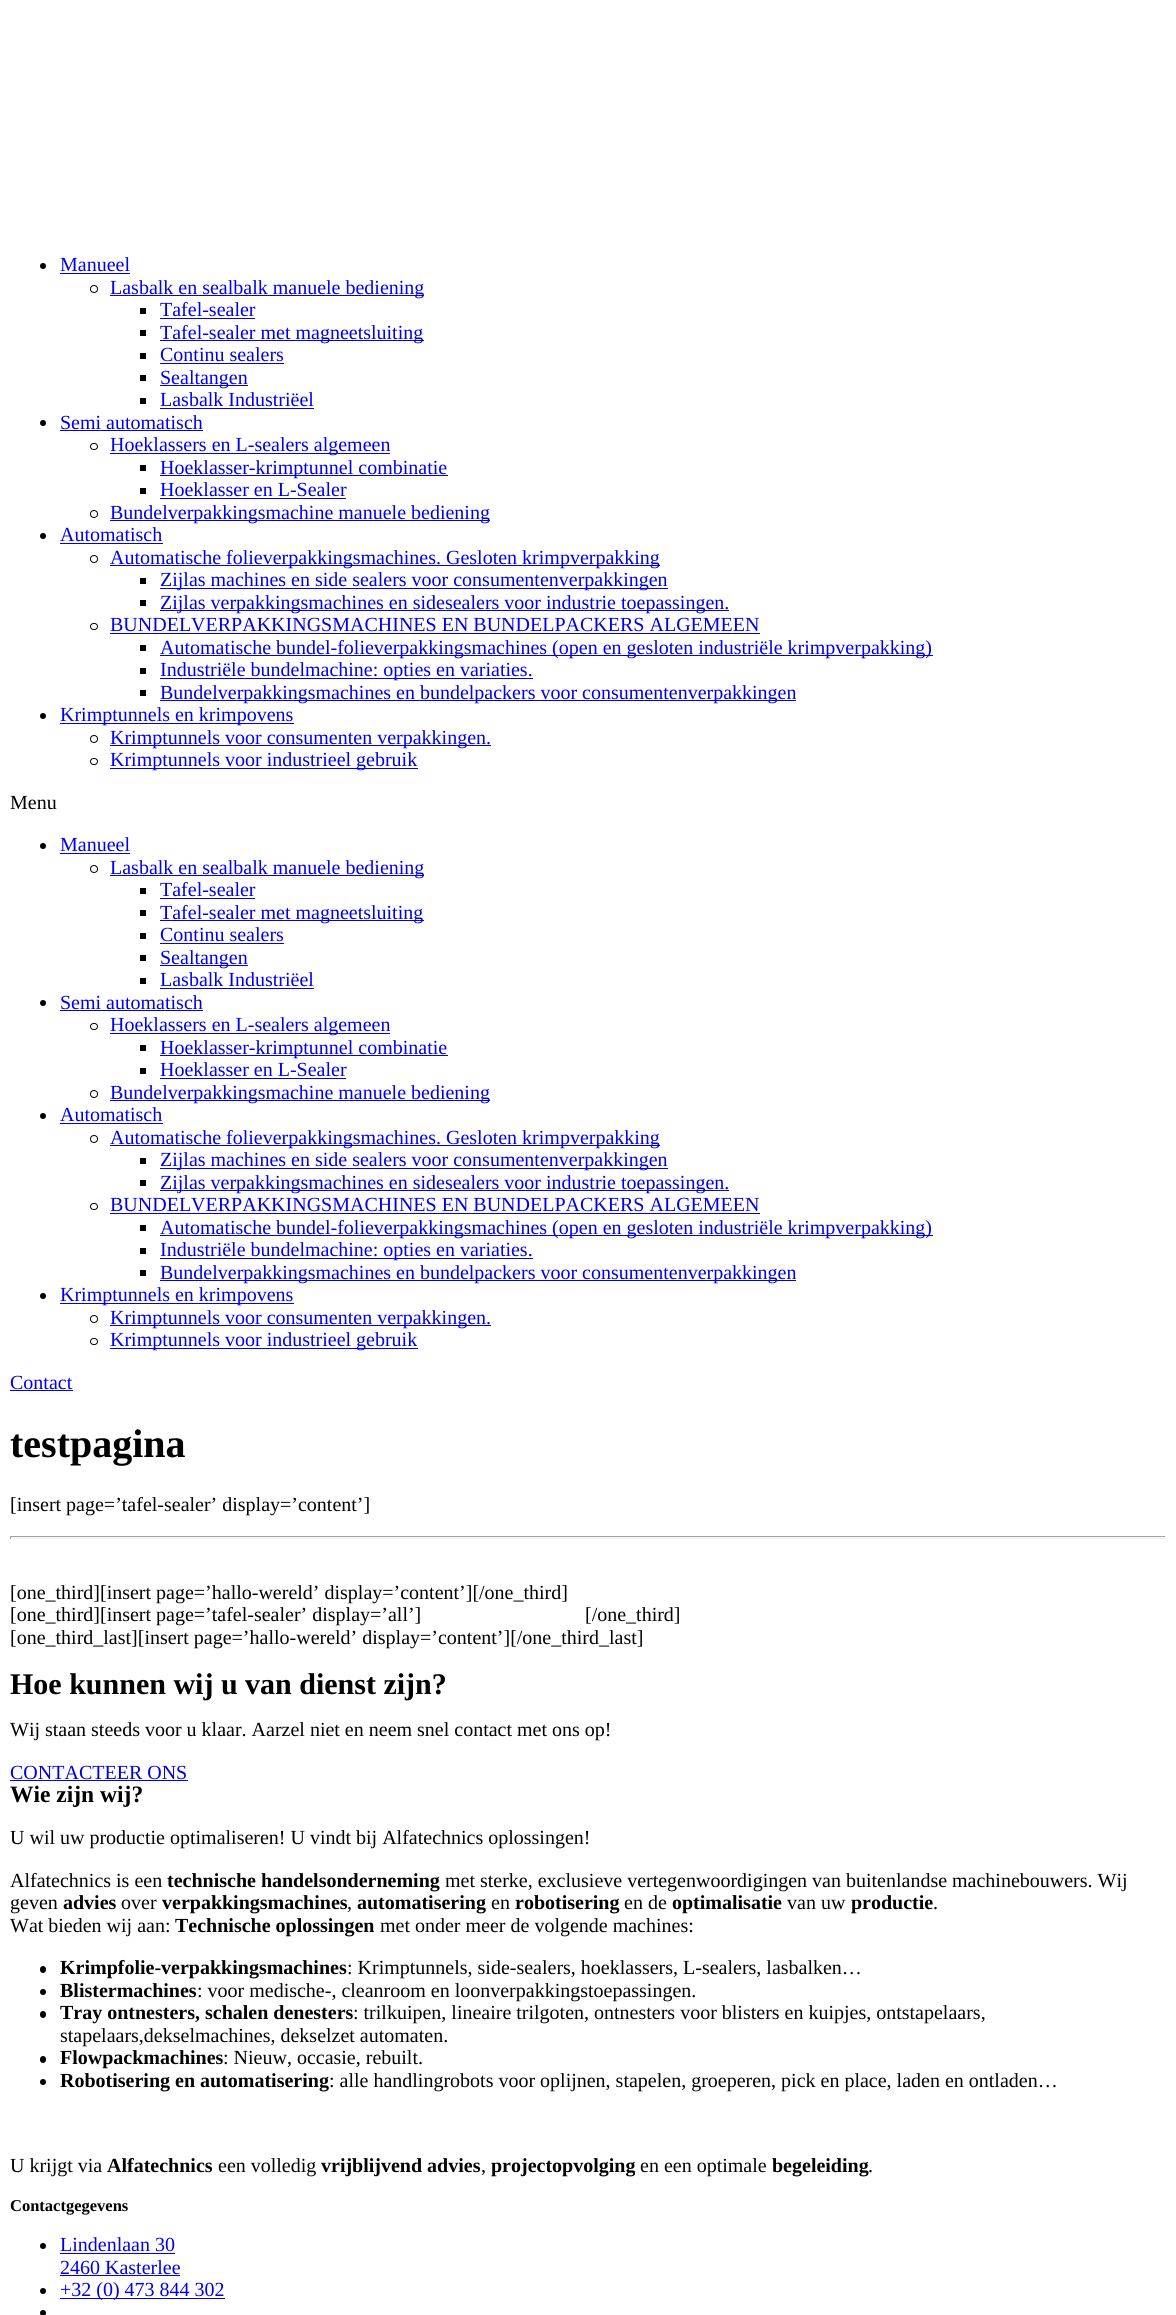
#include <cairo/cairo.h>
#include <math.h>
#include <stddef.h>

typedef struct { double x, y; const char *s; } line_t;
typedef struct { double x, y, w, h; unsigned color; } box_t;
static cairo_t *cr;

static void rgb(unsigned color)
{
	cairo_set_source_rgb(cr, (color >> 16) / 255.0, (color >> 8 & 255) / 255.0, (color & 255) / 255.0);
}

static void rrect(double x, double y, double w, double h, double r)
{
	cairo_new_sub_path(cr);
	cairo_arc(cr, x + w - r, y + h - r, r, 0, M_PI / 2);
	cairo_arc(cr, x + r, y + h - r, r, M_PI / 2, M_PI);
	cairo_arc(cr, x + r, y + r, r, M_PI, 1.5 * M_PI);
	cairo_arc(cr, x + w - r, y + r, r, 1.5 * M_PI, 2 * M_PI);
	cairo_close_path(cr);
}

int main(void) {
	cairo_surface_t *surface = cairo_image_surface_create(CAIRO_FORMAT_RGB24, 1176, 2315);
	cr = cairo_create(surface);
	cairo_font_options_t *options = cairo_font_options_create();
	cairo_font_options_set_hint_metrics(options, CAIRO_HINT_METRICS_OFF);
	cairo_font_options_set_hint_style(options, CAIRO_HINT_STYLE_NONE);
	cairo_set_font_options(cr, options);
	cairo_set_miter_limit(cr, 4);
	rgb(0xffffff);
	cairo_paint(cr);
	rgb(0x000000);
	cairo_arc(cr, 43, 266, 3, 0, 2 * M_PI);
	cairo_fill(cr);
	rgb(0x0000ee);
	cairo_rectangle(cr, 60, 273, 70, 1);
	cairo_fill(cr);
	cairo_arc(cr, 94, 289, 3.5, 0, 2 * M_PI);
	rgb(0x000000);
	cairo_set_line_width(cr, 1);
	cairo_stroke(cr);
	{
		static const box_t items[] = {
			{110, 295, 314, 1, 0x0000ee},
			{140, 308, 6, 6, 0x000000},
			{160, 318, 95, 1, 0x0000ee},
			{140, 330, 6, 6, 0x000000},
			{160, 340, 264, 1, 0x0000ee},
			{140, 353, 6, 6, 0x000000},
			{160, 363, 124, 1, 0x0000ee},
			{140, 375, 6, 6, 0x000000},
			{160, 385, 88, 1, 0x0000ee},
			{140, 398, 6, 6, 0x000000},
			{160, 408, 154, 1, 0x0000ee},
		};
		for (size_t i = 0; i < sizeof items / sizeof *items; i++) {
			rgb(items[i].color);
			cairo_rectangle(cr, items[i].x, items[i].y, items[i].w, items[i].h);
			cairo_fill(cr);
		}
	}
	rgb(0x000000);
	cairo_arc(cr, 43, 423, 3, 0, 2 * M_PI);
	cairo_fill(cr);
	rgb(0x0000ee);
	cairo_rectangle(cr, 60, 430, 143, 1);
	cairo_fill(cr);
	rrect(90.5, 443.5, 7, 6, 3);
	rgb(0x000000);
	cairo_stroke(cr);
	{
		static const box_t items[] = {
			{110, 453, 280, 1, 0x0000ee},
			{140, 465, 6, 6, 0x000000},
			{160, 475, 288, 1, 0x0000ee},
			{140, 488, 6, 6, 0x000000},
			{160, 498, 186, 1, 0x0000ee},
		};
		for (size_t i = 0; i < sizeof items / sizeof *items; i++) {
			rgb(items[i].color);
			cairo_rectangle(cr, items[i].x, items[i].y, items[i].w, items[i].h);
			cairo_fill(cr);
		}
	}
	cairo_arc(cr, 94, 514, 3.5, 0, 2 * M_PI);
	rgb(0x000000);
	cairo_stroke(cr);
	rgb(0x0000ee);
	cairo_rectangle(cr, 110, 520, 380, 1);
	cairo_fill(cr);
	rgb(0x000000);
	cairo_arc(cr, 43, 536, 3, 0, 2 * M_PI);
	cairo_fill(cr);
	rgb(0x0000ee);
	cairo_rectangle(cr, 60, 543, 103, 1);
	cairo_fill(cr);
	cairo_arc(cr, 94, 559, 3.5, 0, 2 * M_PI);
	rgb(0x000000);
	cairo_stroke(cr);
	{
		static const box_t items[] = {
			{110, 565, 550, 1, 0x0000ee},
			{140, 578, 6, 6, 0x000000},
			{160, 588, 508, 1, 0x0000ee},
			{140, 600, 6, 6, 0x000000},
			{160, 610, 569, 1, 0x0000ee},
		};
		for (size_t i = 0; i < sizeof items / sizeof *items; i++) {
			rgb(items[i].color);
			cairo_rectangle(cr, items[i].x, items[i].y, items[i].w, items[i].h);
			cairo_fill(cr);
		}
	}
	rrect(90.5, 623.5, 7, 6, 3);
	rgb(0x000000);
	cairo_stroke(cr);
	{
		static const box_t items[] = {
			{110, 633, 650, 1, 0x0000ee},
			{140, 645, 6, 6, 0x000000},
			{160, 655, 773, 1, 0x0000ee},
			{140, 668, 6, 6, 0x000000},
			{160, 678, 373, 1, 0x0000ee},
			{140, 690, 6, 6, 0x000000},
			{160, 700, 636, 1, 0x0000ee},
		};
		for (size_t i = 0; i < sizeof items / sizeof *items; i++) {
			rgb(items[i].color);
			cairo_rectangle(cr, items[i].x, items[i].y, items[i].w, items[i].h);
			cairo_fill(cr);
		}
	}
	rgb(0x000000);
	cairo_arc(cr, 43, 716, 3, 0, 2 * M_PI);
	cairo_fill(cr);
	rgb(0x0000ee);
	cairo_rectangle(cr, 60, 723, 234, 1);
	cairo_fill(cr);
	cairo_arc(cr, 94, 739, 3.5, 0, 2 * M_PI);
	rgb(0x000000);
	cairo_stroke(cr);
	rgb(0x0000ee);
	cairo_rectangle(cr, 110, 745, 381, 1);
	cairo_fill(cr);
	rrect(90.5, 758.5, 7, 6, 3);
	rgb(0x000000);
	cairo_stroke(cr);
	rgb(0x0000ee);
	cairo_rectangle(cr, 110, 768, 308, 1);
	cairo_fill(cr);
	rgb(0x000000);
	cairo_arc(cr, 43, 846, 3, 0, 2 * M_PI);
	cairo_fill(cr);
	rgb(0x0000ee);
	cairo_rectangle(cr, 60, 853, 70, 1);
	cairo_fill(cr);
	cairo_arc(cr, 94, 869, 3.5, 0, 2 * M_PI);
	rgb(0x000000);
	cairo_stroke(cr);
	{
		static const box_t items[] = {
			{110, 875, 314, 1, 0x0000ee},
			{140, 888, 6, 6, 0x000000},
			{160, 898, 95, 1, 0x0000ee},
			{140, 910, 6, 6, 0x000000},
			{160, 920, 264, 1, 0x0000ee},
			{140, 933, 6, 6, 0x000000},
			{160, 943, 124, 1, 0x0000ee},
			{140, 955, 6, 6, 0x000000},
			{160, 965, 88, 1, 0x0000ee},
			{140, 978, 6, 6, 0x000000},
			{160, 988, 154, 1, 0x0000ee},
		};
		for (size_t i = 0; i < sizeof items / sizeof *items; i++) {
			rgb(items[i].color);
			cairo_rectangle(cr, items[i].x, items[i].y, items[i].w, items[i].h);
			cairo_fill(cr);
		}
	}
	rgb(0x000000);
	cairo_arc(cr, 43, 1003, 3, 0, 2 * M_PI);
	cairo_fill(cr);
	rgb(0x0000ee);
	cairo_rectangle(cr, 60, 1010, 143, 1);
	cairo_fill(cr);
	rrect(90.5, 1023.5, 7, 6, 3);
	rgb(0x000000);
	cairo_stroke(cr);
	{
		static const box_t items[] = {
			{110, 1033, 280, 1, 0x0000ee},
			{140, 1045, 6, 6, 0x000000},
			{160, 1055, 288, 1, 0x0000ee},
			{140, 1068, 6, 6, 0x000000},
			{160, 1078, 186, 1, 0x0000ee},
		};
		for (size_t i = 0; i < sizeof items / sizeof *items; i++) {
			rgb(items[i].color);
			cairo_rectangle(cr, items[i].x, items[i].y, items[i].w, items[i].h);
			cairo_fill(cr);
		}
	}
	cairo_arc(cr, 94, 1094, 3.5, 0, 2 * M_PI);
	rgb(0x000000);
	cairo_stroke(cr);
	rgb(0x0000ee);
	cairo_rectangle(cr, 110, 1100, 380, 1);
	cairo_fill(cr);
	rgb(0x000000);
	cairo_arc(cr, 43, 1116, 3, 0, 2 * M_PI);
	cairo_fill(cr);
	rgb(0x0000ee);
	cairo_rectangle(cr, 60, 1123, 103, 1);
	cairo_fill(cr);
	cairo_arc(cr, 94, 1139, 3.5, 0, 2 * M_PI);
	rgb(0x000000);
	cairo_stroke(cr);
	{
		static const box_t items[] = {
			{110, 1145, 550, 1, 0x0000ee},
			{140, 1158, 6, 6, 0x000000},
			{160, 1168, 508, 1, 0x0000ee},
			{140, 1180, 6, 6, 0x000000},
			{160, 1190, 569, 1, 0x0000ee},
		};
		for (size_t i = 0; i < sizeof items / sizeof *items; i++) {
			rgb(items[i].color);
			cairo_rectangle(cr, items[i].x, items[i].y, items[i].w, items[i].h);
			cairo_fill(cr);
		}
	}
	rrect(90.5, 1203.5, 7, 6, 3);
	rgb(0x000000);
	cairo_stroke(cr);
	{
		static const box_t items[] = {
			{110, 1213, 650, 1, 0x0000ee},
			{140, 1225, 6, 6, 0x000000},
			{160, 1235, 773, 1, 0x0000ee},
			{140, 1248, 6, 6, 0x000000},
			{160, 1258, 373, 1, 0x0000ee},
			{140, 1270, 6, 6, 0x000000},
			{160, 1280, 636, 1, 0x0000ee},
		};
		for (size_t i = 0; i < sizeof items / sizeof *items; i++) {
			rgb(items[i].color);
			cairo_rectangle(cr, items[i].x, items[i].y, items[i].w, items[i].h);
			cairo_fill(cr);
		}
	}
	rgb(0x000000);
	cairo_arc(cr, 43, 1296, 3, 0, 2 * M_PI);
	cairo_fill(cr);
	rgb(0x0000ee);
	cairo_rectangle(cr, 60, 1303, 234, 1);
	cairo_fill(cr);
	cairo_arc(cr, 94, 1319, 3.5, 0, 2 * M_PI);
	rgb(0x000000);
	cairo_stroke(cr);
	rgb(0x0000ee);
	cairo_rectangle(cr, 110, 1325, 381, 1);
	cairo_fill(cr);
	rrect(90.5, 1338.5, 7, 6, 3);
	rgb(0x000000);
	cairo_stroke(cr);
	{
		static const box_t items[] = {
			{110, 1348, 308, 1, 0x0000ee},
			{10, 1390, 63, 1, 0x0000ee},
			{10, 1536, 1156, 1, 0x9f9f9f},
			{1165, 1536, 1, 3, 0xeeeeee},
			{10, 1538, 1156, 1, 0xeeeeee},
			{10, 1536, 1, 3, 0x9f9f9f},
			{10, 1780, 178, 1, 0x0000ee},
		};
		for (size_t i = 0; i < sizeof items / sizeof *items; i++) {
			rgb(items[i].color);
			cairo_rectangle(cr, items[i].x, items[i].y, items[i].w, items[i].h);
			cairo_fill(cr);
		}
	}
	rgb(0x000000);
	rrect(40, 1966, 6, 7, 3);
	cairo_fill(cr);
	cairo_arc(cr, 43, 1992, 3, 0, 2 * M_PI);
	cairo_fill(cr);
	rrect(40, 2011, 6, 7, 3);
	cairo_fill(cr);
	rrect(40, 2056, 6, 7, 3);
	cairo_fill(cr);
	cairo_arc(cr, 43, 2082, 3, 0, 2 * M_PI);
	cairo_fill(cr);
	cairo_arc(cr, 43, 2246, 3, 0, 2 * M_PI);
	cairo_fill(cr);
	rgb(0x0000ee);
	cairo_rectangle(cr, 60, 2253, 115, 1);
	cairo_fill(cr);
	cairo_rectangle(cr, 60, 2275, 120, 1);
	cairo_fill(cr);
	rgb(0x000000);
	cairo_arc(cr, 43, 2291, 3, 0, 2 * M_PI);
	cairo_fill(cr);
	rgb(0x0000ee);
	cairo_rectangle(cr, 60, 2298, 165, 1);
	cairo_fill(cr);
	rgb(0x000000);
	cairo_arc(cr, 43, 2313, 3, 0, 2 * M_PI);
	cairo_fill(cr);
	cairo_select_font_face(cr, "Liberation Serif", CAIRO_FONT_SLANT_NORMAL, CAIRO_FONT_WEIGHT_NORMAL);
	cairo_set_font_size(cr, 20);
	rgb(0x0000ee);
	{
		static const line_t items[] = {
			{60, 271, "Manueel"},
			{110, 294, "Lasbalk en sealbalk manuele bediening"},
			{160, 316, "Tafel-sealer"},
			{160, 339, "Tafel-sealer met magneetsluiting"},
			{160, 361, "Continu sealers"},
			{160, 384, "Sealtangen"},
			{160, 406, "Lasbalk Industriëel"},
			{60, 429, "Semi automatisch"},
			{110, 451, "Hoeklassers en L-sealers algemeen"},
			{160, 474, "Hoeklasser-krimptunnel combinatie"},
			{160, 496, "Hoeklasser en L-Sealer"},
			{110, 519, "Bundelverpakkingsmachine manuele bediening"},
			{60, 541, "Automatisch"},
			{110, 564, "Automatische folieverpakkingsmachines. Gesloten krimpverpakking"},
			{160, 586, "Zijlas machines en side sealers voor consumentenverpakkingen"},
			{160, 609, "Zijlas verpakkingsmachines en sidesealers voor industrie toepassingen."},
			{110, 631, "BUNDELVERPAKKINGSMACHINES EN BUNDELPACKERS ALGEMEEN"},
			{160, 654, "Automatische bundel-folieverpakkingsmachines (open en gesloten industriële krimpverpakking)"},
			{160, 676, "Industriële bundelmachine: opties en variaties."},
			{160, 699, "Bundelverpakkingsmachines en bundelpackers voor consumentenverpakkingen"},
			{60, 721, "Krimptunnels en krimpovens"},
			{110, 744, "Krimptunnels voor consumenten verpakkingen."},
			{110, 766, "Krimptunnels voor industrieel gebruik"},
		};
		for (size_t i = 0; i < sizeof items / sizeof *items; i++) {
			cairo_move_to(cr, items[i].x, items[i].y);
			cairo_show_text(cr, items[i].s);
		}
	}
	rgb(0x000000);
	cairo_move_to(cr, 10, 809);
	cairo_show_text(cr, "Menu");
	rgb(0x0000ee);
	{
		static const line_t items[] = {
			{60, 851, "Manueel"},
			{110, 874, "Lasbalk en sealbalk manuele bediening"},
			{160, 896, "Tafel-sealer"},
			{160, 919, "Tafel-sealer met magneetsluiting"},
			{160, 941, "Continu sealers"},
			{160, 964, "Sealtangen"},
			{160, 986, "Lasbalk Industriëel"},
			{60, 1009, "Semi automatisch"},
			{110, 1031, "Hoeklassers en L-sealers algemeen"},
			{160, 1054, "Hoeklasser-krimptunnel combinatie"},
			{160, 1076, "Hoeklasser en L-Sealer"},
			{110, 1099, "Bundelverpakkingsmachine manuele bediening"},
			{60, 1121, "Automatisch"},
			{110, 1144, "Automatische folieverpakkingsmachines. Gesloten krimpverpakking"},
			{160, 1166, "Zijlas machines en side sealers voor consumentenverpakkingen"},
			{160, 1189, "Zijlas verpakkingsmachines en sidesealers voor industrie toepassingen."},
			{110, 1211, "BUNDELVERPAKKINGSMACHINES EN BUNDELPACKERS ALGEMEEN"},
			{160, 1234, "Automatische bundel-folieverpakkingsmachines (open en gesloten industriële krimpverpakking)"},
			{160, 1256, "Industriële bundelmachine: opties en variaties."},
			{160, 1279, "Bundelverpakkingsmachines en bundelpackers voor consumentenverpakkingen"},
			{60, 1301, "Krimptunnels en krimpovens"},
			{110, 1324, "Krimptunnels voor consumenten verpakkingen."},
			{110, 1346, "Krimptunnels voor industrieel gebruik"},
			{10, 1389, "Contact"},
		};
		for (size_t i = 0; i < sizeof items / sizeof *items; i++) {
			cairo_move_to(cr, items[i].x, items[i].y);
			cairo_show_text(cr, items[i].s);
		}
	}
	cairo_select_font_face(cr, "Liberation Serif", CAIRO_FONT_SLANT_NORMAL, CAIRO_FONT_WEIGHT_BOLD);
	cairo_set_font_size(cr, 40);
	rgb(0x000000);
	cairo_move_to(cr, 10, 1457);
	cairo_show_text(cr, "testpagina");
	cairo_select_font_face(cr, "Liberation Serif", CAIRO_FONT_SLANT_NORMAL, CAIRO_FONT_WEIGHT_NORMAL);
	cairo_set_font_size(cr, 20);
	{
		static const line_t items[] = {
			{10, 1511, "[insert page=’tafel-sealer’ display=’content’]"},
			{10, 1599, "[one_third][insert page=’hallo-wereld’ display=’content’][/one_third]"},
			{10, 1621, "[one_third][insert page=’tafel-sealer’ display=’all’]"},
			{585, 1621, "[/one_third]"},
			{10, 1644, "[one_third_last][insert page=’hallo-wereld’ display=’content’][/one_third_last]"},
		};
		for (size_t i = 0; i < sizeof items / sizeof *items; i++) {
			cairo_move_to(cr, items[i].x, items[i].y);
			cairo_show_text(cr, items[i].s);
		}
	}
	cairo_select_font_face(cr, "Liberation Serif", CAIRO_FONT_SLANT_NORMAL, CAIRO_FONT_WEIGHT_BOLD);
	cairo_set_font_size(cr, 30);
	cairo_move_to(cr, 10, 1694);
	cairo_show_text(cr, "Hoe kunnen wij u van dienst zijn?");
	cairo_select_font_face(cr, "Liberation Serif", CAIRO_FONT_SLANT_NORMAL, CAIRO_FONT_WEIGHT_NORMAL);
	cairo_set_font_size(cr, 20);
	cairo_move_to(cr, 10, 1736);
	cairo_show_text(cr, "Wij staan steeds voor u klaar. Aarzel niet en neem snel contact met ons op!");
	rgb(0x0000ee);
	cairo_move_to(cr, 10, 1779);
	cairo_show_text(cr, "CONTACTEER ONS");
	cairo_select_font_face(cr, "Liberation Serif", CAIRO_FONT_SLANT_NORMAL, CAIRO_FONT_WEIGHT_BOLD);
	cairo_set_font_size(cr, 23.5);
	rgb(0x000000);
	cairo_move_to(cr, 10, 1802);
	cairo_show_text(cr, "Wie zijn wij?");
	cairo_select_font_face(cr, "Liberation Serif", CAIRO_FONT_SLANT_NORMAL, CAIRO_FONT_WEIGHT_NORMAL);
	cairo_set_font_size(cr, 20);
	cairo_move_to(cr, 10, 1844);
	cairo_show_text(cr, "U wil uw productie optimaliseren! U vindt bij Alfatechnics oplossingen!");
	cairo_move_to(cr, 10, 1887);
	cairo_show_text(cr, "Alfatechnics is een");
	cairo_select_font_face(cr, "Liberation Serif", CAIRO_FONT_SLANT_NORMAL, CAIRO_FONT_WEIGHT_BOLD);
	cairo_move_to(cr, 167, 1887);
	cairo_show_text(cr, "technische handelsonderneming");
	cairo_select_font_face(cr, "Liberation Serif", CAIRO_FONT_SLANT_NORMAL, CAIRO_FONT_WEIGHT_NORMAL);
	cairo_move_to(cr, 445, 1887);
	cairo_show_text(cr, "met sterke, exclusieve vertegenwoordigingen van buitenlandse machinebouwers. Wij");
	cairo_move_to(cr, 10, 1909);
	cairo_show_text(cr, "geven");
	cairo_select_font_face(cr, "Liberation Serif", CAIRO_FONT_SLANT_NORMAL, CAIRO_FONT_WEIGHT_BOLD);
	cairo_move_to(cr, 63, 1909);
	cairo_show_text(cr, "advies");
	cairo_select_font_face(cr, "Liberation Serif", CAIRO_FONT_SLANT_NORMAL, CAIRO_FONT_WEIGHT_NORMAL);
	cairo_move_to(cr, 121, 1909);
	cairo_show_text(cr, "over");
	cairo_select_font_face(cr, "Liberation Serif", CAIRO_FONT_SLANT_NORMAL, CAIRO_FONT_WEIGHT_BOLD);
	cairo_move_to(cr, 162, 1909);
	cairo_show_text(cr, "verpakkingsmachines");
	cairo_select_font_face(cr, "Liberation Serif", CAIRO_FONT_SLANT_NORMAL, CAIRO_FONT_WEIGHT_NORMAL);
	cairo_move_to(cr, 347, 1909);
	cairo_show_text(cr, ",");
	cairo_select_font_face(cr, "Liberation Serif", CAIRO_FONT_SLANT_NORMAL, CAIRO_FONT_WEIGHT_BOLD);
	cairo_move_to(cr, 357, 1909);
	cairo_show_text(cr, "automatisering");
	cairo_select_font_face(cr, "Liberation Serif", CAIRO_FONT_SLANT_NORMAL, CAIRO_FONT_WEIGHT_NORMAL);
	cairo_move_to(cr, 491, 1909);
	cairo_show_text(cr, "en");
	cairo_select_font_face(cr, "Liberation Serif", CAIRO_FONT_SLANT_NORMAL, CAIRO_FONT_WEIGHT_BOLD);
	cairo_move_to(cr, 515, 1909);
	cairo_show_text(cr, "robotisering");
	cairo_select_font_face(cr, "Liberation Serif", CAIRO_FONT_SLANT_NORMAL, CAIRO_FONT_WEIGHT_NORMAL);
	cairo_move_to(cr, 624, 1909);
	cairo_show_text(cr, "en de");
	cairo_select_font_face(cr, "Liberation Serif", CAIRO_FONT_SLANT_NORMAL, CAIRO_FONT_WEIGHT_BOLD);
	cairo_move_to(cr, 672, 1909);
	cairo_show_text(cr, "optimalisatie");
	cairo_select_font_face(cr, "Liberation Serif", CAIRO_FONT_SLANT_NORMAL, CAIRO_FONT_WEIGHT_NORMAL);
	cairo_move_to(cr, 787, 1909);
	cairo_show_text(cr, "van uw");
	cairo_select_font_face(cr, "Liberation Serif", CAIRO_FONT_SLANT_NORMAL, CAIRO_FONT_WEIGHT_BOLD);
	cairo_move_to(cr, 851, 1909);
	cairo_show_text(cr, "productie");
	cairo_select_font_face(cr, "Liberation Serif", CAIRO_FONT_SLANT_NORMAL, CAIRO_FONT_WEIGHT_NORMAL);
	cairo_move_to(cr, 933, 1909);
	cairo_show_text(cr, ".");
	cairo_move_to(cr, 10, 1932);
	cairo_show_text(cr, "Wat bieden wij aan:");
	cairo_select_font_face(cr, "Liberation Serif", CAIRO_FONT_SLANT_NORMAL, CAIRO_FONT_WEIGHT_BOLD);
	cairo_move_to(cr, 175, 1932);
	cairo_show_text(cr, "Technische oplossingen");
	cairo_select_font_face(cr, "Liberation Serif", CAIRO_FONT_SLANT_NORMAL, CAIRO_FONT_WEIGHT_NORMAL);
	cairo_move_to(cr, 380, 1932);
	cairo_show_text(cr, "met onder meer de volgende machines:");
	cairo_select_font_face(cr, "Liberation Serif", CAIRO_FONT_SLANT_NORMAL, CAIRO_FONT_WEIGHT_BOLD);
	cairo_move_to(cr, 60, 1974);
	cairo_show_text(cr, "Krimpfolie-verpakkingsmachines");
	cairo_select_font_face(cr, "Liberation Serif", CAIRO_FONT_SLANT_NORMAL, CAIRO_FONT_WEIGHT_NORMAL);
	cairo_move_to(cr, 347, 1974);
	cairo_show_text(cr, ": Krimptunnels, side-sealers, hoeklassers, L-sealers, lasbalken…");
	cairo_select_font_face(cr, "Liberation Serif", CAIRO_FONT_SLANT_NORMAL, CAIRO_FONT_WEIGHT_BOLD);
	cairo_move_to(cr, 60, 1997);
	cairo_show_text(cr, "Blistermachines");
	cairo_select_font_face(cr, "Liberation Serif", CAIRO_FONT_SLANT_NORMAL, CAIRO_FONT_WEIGHT_NORMAL);
	cairo_move_to(cr, 197, 1997);
	cairo_show_text(cr, ": voor medische-, cleanroom en loonverpakkingstoepassingen.");
	cairo_select_font_face(cr, "Liberation Serif", CAIRO_FONT_SLANT_NORMAL, CAIRO_FONT_WEIGHT_BOLD);
	cairo_move_to(cr, 60, 2019);
	cairo_show_text(cr, "Tray ontnesters, schalen denesters");
	cairo_select_font_face(cr, "Liberation Serif", CAIRO_FONT_SLANT_NORMAL, CAIRO_FONT_WEIGHT_NORMAL);
	cairo_move_to(cr, 353, 2019);
	cairo_show_text(cr, ": trilkuipen, lineaire trilgoten, ontnesters voor blisters en kuipjes, ontstapelaars,");
	cairo_move_to(cr, 60, 2042);
	cairo_show_text(cr, "stapelaars,dekselmachines, dekselzet automaten.");
	cairo_select_font_face(cr, "Liberation Serif", CAIRO_FONT_SLANT_NORMAL, CAIRO_FONT_WEIGHT_BOLD);
	cairo_move_to(cr, 60, 2064);
	cairo_show_text(cr, "Flowpackmachines");
	cairo_select_font_face(cr, "Liberation Serif", CAIRO_FONT_SLANT_NORMAL, CAIRO_FONT_WEIGHT_NORMAL);
	cairo_move_to(cr, 223, 2064);
	cairo_show_text(cr, ": Nieuw, occasie, rebuilt.");
	cairo_select_font_face(cr, "Liberation Serif", CAIRO_FONT_SLANT_NORMAL, CAIRO_FONT_WEIGHT_BOLD);
	cairo_move_to(cr, 60, 2087);
	cairo_show_text(cr, "Robotisering en automatisering");
	cairo_select_font_face(cr, "Liberation Serif", CAIRO_FONT_SLANT_NORMAL, CAIRO_FONT_WEIGHT_NORMAL);
	cairo_move_to(cr, 329, 2087);
	cairo_show_text(cr, ": alle handlingrobots voor oplijnen, stapelen, groeperen, pick en place, laden en ontladen…");
	cairo_move_to(cr, 10, 2172);
	cairo_show_text(cr, "U krijgt via");
	cairo_select_font_face(cr, "Liberation Serif", CAIRO_FONT_SLANT_NORMAL, CAIRO_FONT_WEIGHT_BOLD);
	cairo_move_to(cr, 107, 2172);
	cairo_show_text(cr, "Alfatechnics");
	cairo_select_font_face(cr, "Liberation Serif", CAIRO_FONT_SLANT_NORMAL, CAIRO_FONT_WEIGHT_NORMAL);
	cairo_move_to(cr, 218, 2172);
	cairo_show_text(cr, "een volledig");
	cairo_select_font_face(cr, "Liberation Serif", CAIRO_FONT_SLANT_NORMAL, CAIRO_FONT_WEIGHT_BOLD);
	cairo_move_to(cr, 321, 2172);
	cairo_show_text(cr, "vrijblijvend advies");
	cairo_select_font_face(cr, "Liberation Serif", CAIRO_FONT_SLANT_NORMAL, CAIRO_FONT_WEIGHT_NORMAL);
	cairo_move_to(cr, 481, 2172);
	cairo_show_text(cr, ",");
	cairo_select_font_face(cr, "Liberation Serif", CAIRO_FONT_SLANT_NORMAL, CAIRO_FONT_WEIGHT_BOLD);
	cairo_move_to(cr, 491, 2172);
	cairo_show_text(cr, "projectopvolging");
	cairo_select_font_face(cr, "Liberation Serif", CAIRO_FONT_SLANT_NORMAL, CAIRO_FONT_WEIGHT_NORMAL);
	cairo_move_to(cr, 640, 2172);
	cairo_show_text(cr, "en een optimale");
	cairo_select_font_face(cr, "Liberation Serif", CAIRO_FONT_SLANT_NORMAL, CAIRO_FONT_WEIGHT_BOLD);
	cairo_move_to(cr, 772, 2172);
	cairo_show_text(cr, "begeleiding");
	cairo_select_font_face(cr, "Liberation Serif", CAIRO_FONT_SLANT_NORMAL, CAIRO_FONT_WEIGHT_NORMAL);
	cairo_move_to(cr, 868, 2172);
	cairo_show_text(cr, ".");
	cairo_select_font_face(cr, "Liberation Serif", CAIRO_FONT_SLANT_NORMAL, CAIRO_FONT_WEIGHT_BOLD);
	cairo_set_font_size(cr, 16.5);
	cairo_move_to(cr, 10, 2211);
	cairo_show_text(cr, "Contactgegevens");
	cairo_select_font_face(cr, "Liberation Serif", CAIRO_FONT_SLANT_NORMAL, CAIRO_FONT_WEIGHT_NORMAL);
	cairo_set_font_size(cr, 20);
	rgb(0x0000ee);
	{
		static const line_t items[] = {
			{60, 2251, "Lindenlaan 30"},
			{60, 2274, "2460 Kasterlee"},
			{60, 2296, "+32 (0) 473 844 302"},
		};
		for (size_t i = 0; i < sizeof items / sizeof *items; i++) {
			cairo_move_to(cr, items[i].x, items[i].y);
			cairo_show_text(cr, items[i].s);
		}
	}
	cairo_surface_write_to_png(surface, "page.png");
	cairo_font_options_destroy(options);
	cairo_destroy(cr);
	cairo_surface_destroy(surface);
	return 0;
}
